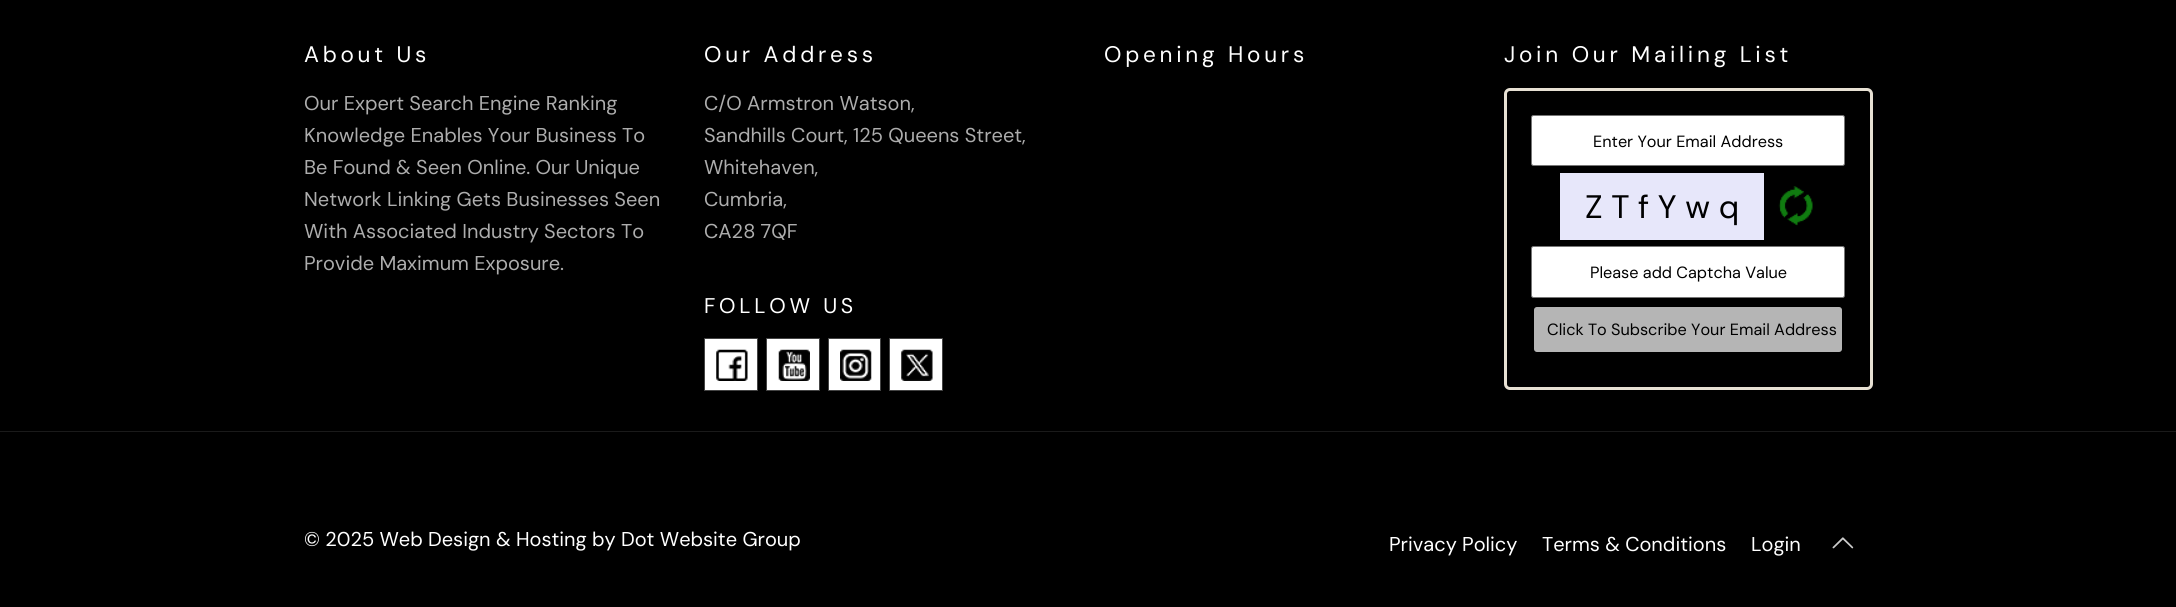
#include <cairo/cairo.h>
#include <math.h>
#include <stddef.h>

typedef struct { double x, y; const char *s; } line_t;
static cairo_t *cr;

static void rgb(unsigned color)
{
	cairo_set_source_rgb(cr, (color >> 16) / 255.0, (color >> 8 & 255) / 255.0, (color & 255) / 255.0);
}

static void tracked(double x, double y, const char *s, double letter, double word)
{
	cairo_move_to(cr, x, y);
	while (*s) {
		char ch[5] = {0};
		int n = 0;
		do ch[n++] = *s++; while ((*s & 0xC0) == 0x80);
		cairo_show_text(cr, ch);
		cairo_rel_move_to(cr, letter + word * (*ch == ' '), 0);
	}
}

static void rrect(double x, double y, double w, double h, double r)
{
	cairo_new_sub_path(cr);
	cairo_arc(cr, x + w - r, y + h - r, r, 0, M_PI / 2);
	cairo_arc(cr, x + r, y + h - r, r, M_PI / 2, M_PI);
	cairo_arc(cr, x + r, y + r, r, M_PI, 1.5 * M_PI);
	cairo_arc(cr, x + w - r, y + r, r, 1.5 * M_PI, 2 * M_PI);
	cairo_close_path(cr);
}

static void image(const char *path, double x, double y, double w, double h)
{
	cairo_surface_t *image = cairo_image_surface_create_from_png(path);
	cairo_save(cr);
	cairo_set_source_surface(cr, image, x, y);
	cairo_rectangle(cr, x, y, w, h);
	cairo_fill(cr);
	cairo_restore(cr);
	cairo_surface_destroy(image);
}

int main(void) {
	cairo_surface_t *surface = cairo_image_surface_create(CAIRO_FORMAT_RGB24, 2176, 607);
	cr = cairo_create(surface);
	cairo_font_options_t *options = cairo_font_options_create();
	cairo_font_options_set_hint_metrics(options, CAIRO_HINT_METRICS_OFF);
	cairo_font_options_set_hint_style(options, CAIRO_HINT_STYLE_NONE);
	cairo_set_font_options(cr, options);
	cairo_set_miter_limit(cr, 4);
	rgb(0x000000);
	cairo_paint(cr);
	rgb(0xffffff);
	cairo_rectangle(cr, 704.5, 338.5, 53, 52);
	cairo_fill_preserve(cr);
	rgb(0x444444);
	cairo_set_line_width(cr, 1);
	cairo_stroke(cr);
	image("img/1.png", 716, 349, 32, 32);
	rgb(0xffffff);
	cairo_rectangle(cr, 766.5, 338.5, 53, 52);
	cairo_fill_preserve(cr);
	rgb(0x444444);
	cairo_stroke(cr);
	image("img/2.png", 778, 349, 32, 32);
	rgb(0xffffff);
	cairo_rectangle(cr, 828.5, 338.5, 52, 52);
	cairo_fill_preserve(cr);
	rgb(0x444444);
	cairo_stroke(cr);
	image("img/3.png", 840, 349, 32, 32);
	rgb(0xffffff);
	cairo_rectangle(cr, 889.5, 338.5, 53, 52);
	cairo_fill_preserve(cr);
	rgb(0x444444);
	cairo_stroke(cr);
	image("img/4.png", 901, 349, 32, 32);
	rrect(1505.5, 89.5, 366, 299, 4.5);
	rgb(0xe7e0d3);
	cairo_set_line_width(cr, 3);
	cairo_stroke(cr);
	rgb(0xffffff);
	rrect(1531.5, 115.5, 313, 50, 2);
	cairo_fill_preserve(cr);
	rgb(0x767676);
	cairo_set_line_width(cr, 1);
	cairo_stroke(cr);
	rgb(0xe7e7fa);
	cairo_rectangle(cr, 1560, 173, 204, 67);
	cairo_fill(cr);
	image("img/5.png", 1778, 186, 35, 40);
	rgb(0xffffff);
	rrect(1531.5, 246.5, 313, 51, 2);
	cairo_fill_preserve(cr);
	rgb(0x767676);
	cairo_stroke(cr);
	rgb(0xb5b5b5);
	rrect(1532.5, 305.5, 311, 48, 4.5);
	cairo_fill_preserve(cr);
	rgb(0x000000);
	cairo_set_line_width(cr, 3);
	cairo_stroke(cr);
	rgb(0x1a1a1a);
	cairo_rectangle(cr, 0, 431, 2176, 1);
	cairo_fill(cr);
	image("img/6.png", 1832, 537, 22, 12);
	cairo_select_font_face(cr, "DM Sans", CAIRO_FONT_SLANT_NORMAL, CAIRO_FONT_WEIGHT_NORMAL);
	cairo_set_font_size(cr, 22.5);
	rgb(0xffffff);
	tracked(304, 62, "About Us", 3.75, 0);
	cairo_set_font_size(cr, 20);
	rgb(0xadadad);
	{
		static const line_t items[] = {
			{304, 110, "Our Expert Search Engine Ranking"},
			{304, 142, "Knowledge Enables Your Business To"},
			{304, 174, "Be Found & Seen Online. Our Unique"},
			{304, 206, "Network Linking Gets Businesses Seen"},
			{304, 238, "With Associated Industry Sectors To"},
			{304, 270, "Provide Maximum Exposure."},
		};
		for (size_t i = 0; i < sizeof items / sizeof *items; i++) {
			cairo_move_to(cr, items[i].x, items[i].y);
			cairo_show_text(cr, items[i].s);
		}
	}
	cairo_set_font_size(cr, 22.5);
	rgb(0xffffff);
	tracked(704, 62, "Our Address", 3.75, 0);
	cairo_set_font_size(cr, 20);
	rgb(0xadadad);
	{
		static const line_t items[] = {
			{704, 110, "C/O Armstron Watson,"},
			{704, 142, "Sandhills Court, 125 Queens Street,"},
			{704, 174, "Whitehaven,"},
			{704, 206, "Cumbria,"},
			{704, 238, "CA28 7QF"},
		};
		for (size_t i = 0; i < sizeof items / sizeof *items; i++) {
			cairo_move_to(cr, items[i].x, items[i].y);
			cairo_show_text(cr, items[i].s);
		}
	}
	cairo_set_font_size(cr, 21.25);
	rgb(0xffffff);
	tracked(704, 313, "FOLLOW US", 3.75, 0);
	cairo_set_font_size(cr, 22.5);
	tracked(1104, 62, "Opening Hours", 3.75, 0);
	tracked(1504, 62, "Join Our Mailing List", 3.75, 0);
	cairo_set_font_size(cr, 16.25);
	rgb(0x000000);
	cairo_move_to(cr, 1593, 147);
	cairo_show_text(cr, "Enter Your Email Address");
	cairo_set_font_size(cr, 32.5);
	cairo_move_to(cr, 1585, 218);
	cairo_show_text(cr, "Z T f Y w q");
	cairo_set_font_size(cr, 16.25);
	cairo_move_to(cr, 1590, 278);
	cairo_show_text(cr, "Please add Captcha Value");
	cairo_move_to(cr, 1547, 335);
	cairo_show_text(cr, "Click To Subscribe Your Email Address");
	cairo_set_font_size(cr, 20);
	rgb(0xffffff);
	{
		static const line_t items[] = {
			{304, 546, "© 2025 Web Design & Hosting by Dot Website Group"},
			{1389, 551, "Privacy Policy"},
			{1542, 551, "Terms & Conditions"},
			{1751, 551, "Login"},
		};
		for (size_t i = 0; i < sizeof items / sizeof *items; i++) {
			cairo_move_to(cr, items[i].x, items[i].y);
			cairo_show_text(cr, items[i].s);
		}
	}
	cairo_surface_write_to_png(surface, "page.png");
	cairo_font_options_destroy(options);
	cairo_destroy(cr);
	cairo_surface_destroy(surface);
	return 0;
}
